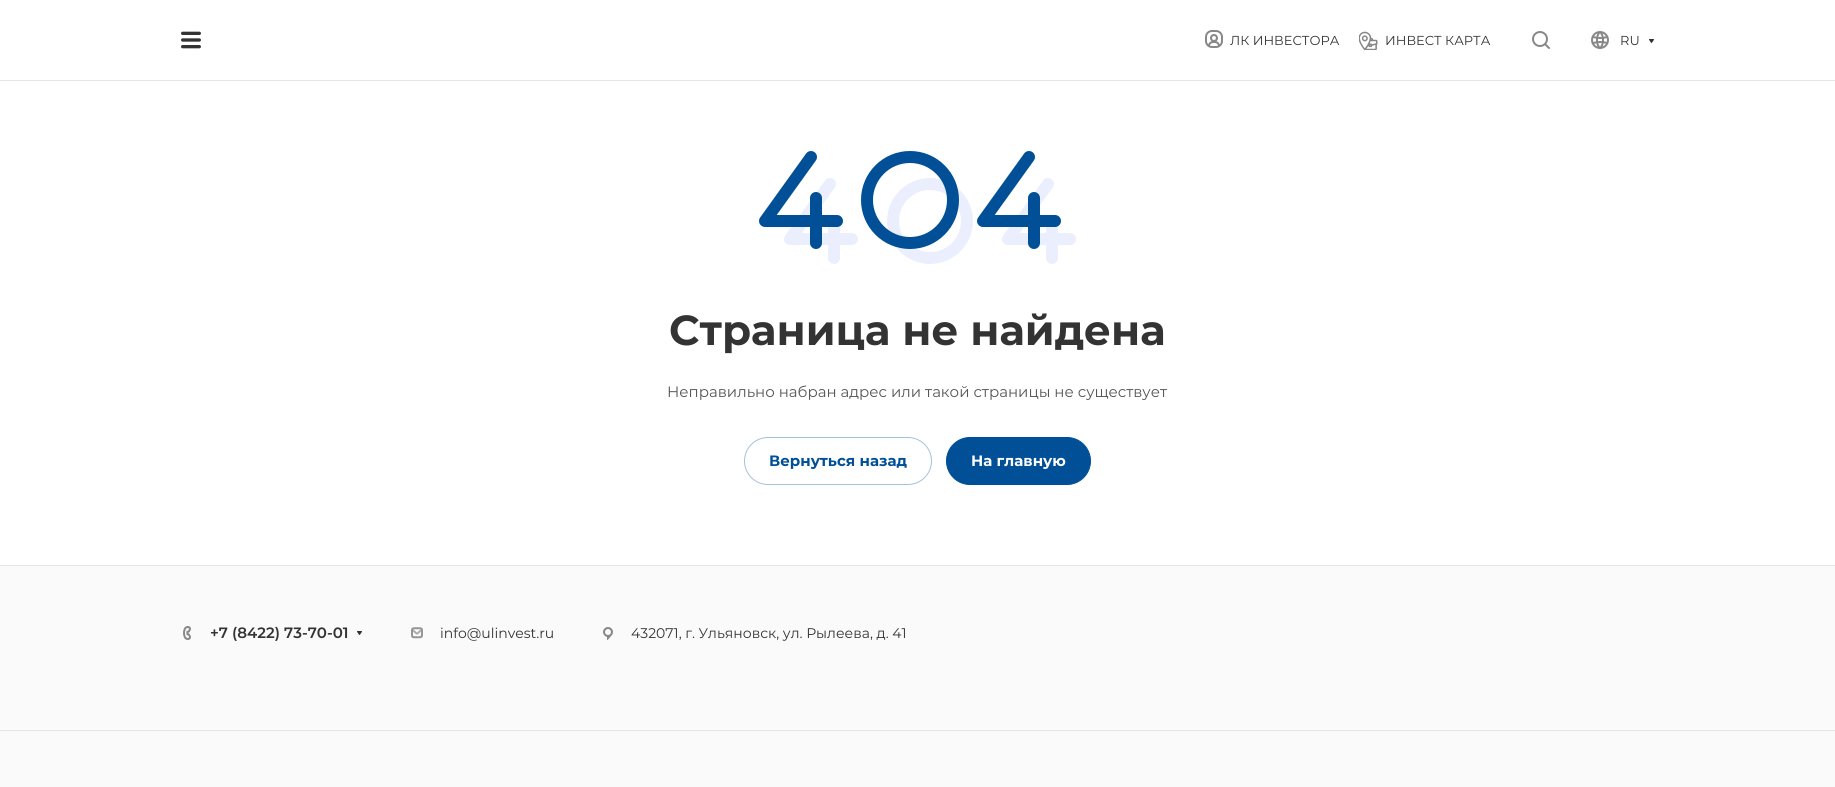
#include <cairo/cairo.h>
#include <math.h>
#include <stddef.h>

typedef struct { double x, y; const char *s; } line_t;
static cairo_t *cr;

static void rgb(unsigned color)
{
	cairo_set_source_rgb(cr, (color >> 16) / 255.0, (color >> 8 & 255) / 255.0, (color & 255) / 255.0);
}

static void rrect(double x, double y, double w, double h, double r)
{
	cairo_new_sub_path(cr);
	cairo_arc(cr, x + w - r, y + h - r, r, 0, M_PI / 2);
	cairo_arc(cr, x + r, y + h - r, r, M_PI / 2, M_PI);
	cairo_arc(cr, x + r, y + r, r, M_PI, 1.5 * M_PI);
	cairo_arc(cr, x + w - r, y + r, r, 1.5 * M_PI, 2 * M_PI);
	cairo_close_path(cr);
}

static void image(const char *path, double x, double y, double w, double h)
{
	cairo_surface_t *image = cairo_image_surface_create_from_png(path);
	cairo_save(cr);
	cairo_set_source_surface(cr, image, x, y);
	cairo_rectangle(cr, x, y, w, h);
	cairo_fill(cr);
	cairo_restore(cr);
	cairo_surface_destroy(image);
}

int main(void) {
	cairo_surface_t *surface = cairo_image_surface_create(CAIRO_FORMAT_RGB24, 1835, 787);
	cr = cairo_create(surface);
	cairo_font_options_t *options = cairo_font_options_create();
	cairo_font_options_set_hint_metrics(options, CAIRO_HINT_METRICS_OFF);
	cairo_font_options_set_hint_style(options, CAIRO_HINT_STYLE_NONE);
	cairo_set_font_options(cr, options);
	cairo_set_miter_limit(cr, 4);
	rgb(0xffffff);
	cairo_paint(cr);
	rgb(0xe5e5e5);
	cairo_rectangle(cr, 0, 80, 1835, 1);
	cairo_fill(cr);
	image("img/1.png", 181, 31, 20, 18);
	image("img/2.png", 1205, 30, 18, 18);
	image("img/3.png", 1359, 31, 19, 19);
	image("img/4.png", 1532, 31, 18, 18);
	image("img/5.png", 1591, 31, 18, 18);
	image("img/6.png", 1649, 39, 5, 4);
	image("img/7.png", 759, 151, 317, 113);
	rrect(744.5, 437.5, 187, 47, 23.5);
	rgb(0xa6c1db);
	cairo_set_line_width(cr, 1);
	cairo_stroke(cr);
	rgb(0x004f97);
	rrect(946.5, 437.5, 144, 47, 23.5);
	cairo_fill_preserve(cr);
	cairo_stroke(cr);
	rgb(0xfafafa);
	cairo_rectangle(cr, 0, 566, 1835, 221);
	cairo_fill(cr);
	rgb(0xe5e5e5);
	cairo_rectangle(cr, 0, 565, 1835, 1);
	cairo_fill(cr);
	image("img/8.png", 183, 626, 8, 14);
	image("img/9.png", 357, 631, 5, 4);
	image("img/10.png", 411, 627, 12, 12);
	image("img/11.png", 603, 627, 10, 13);
	cairo_rectangle(cr, 0, 730, 1835, 1);
	cairo_fill(cr);
	cairo_select_font_face(cr, "Montserrat", CAIRO_FONT_SLANT_NORMAL, CAIRO_FONT_WEIGHT_NORMAL);
	cairo_set_font_size(cr, 13);
	rgb(0x333333);
	{
		static const line_t items[] = {
			{1230, 45, "ЛК ИНВЕСТОРА"},
			{1385, 45, "ИНВЕСТ КАРТА"},
			{1620, 45, "RU"},
		};
		for (size_t i = 0; i < sizeof items / sizeof *items; i++) {
			cairo_move_to(cr, items[i].x, items[i].y);
			cairo_show_text(cr, items[i].s);
		}
	}
	cairo_select_font_face(cr, "Montserrat", CAIRO_FONT_SLANT_NORMAL, CAIRO_FONT_WEIGHT_BOLD);
	cairo_set_font_size(cr, 42);
	cairo_move_to(cr, 669, 345);
	cairo_show_text(cr, "Страница не найдена");
	cairo_select_font_face(cr, "Montserrat", CAIRO_FONT_SLANT_NORMAL, CAIRO_FONT_WEIGHT_NORMAL);
	cairo_set_font_size(cr, 15);
	rgb(0x555555);
	cairo_move_to(cr, 667, 397);
	cairo_show_text(cr, "Неправильно набран адрес или такой страницы не существует");
	cairo_select_font_face(cr, "Montserrat", CAIRO_FONT_SLANT_NORMAL, CAIRO_FONT_WEIGHT_BOLD);
	rgb(0x004f97);
	cairo_move_to(cr, 769, 466);
	cairo_show_text(cr, "Вернуться назад");
	rgb(0xffffff);
	cairo_move_to(cr, 971, 466);
	cairo_show_text(cr, "На главную");
	cairo_select_font_face(cr, "Montserrat SemiBold", CAIRO_FONT_SLANT_NORMAL, CAIRO_FONT_WEIGHT_NORMAL);
	rgb(0x333333);
	cairo_move_to(cr, 210, 638);
	cairo_show_text(cr, "+7 (8422) 73-70-01");
	cairo_select_font_face(cr, "Montserrat", CAIRO_FONT_SLANT_NORMAL, CAIRO_FONT_WEIGHT_NORMAL);
	cairo_set_font_size(cr, 14);
	cairo_move_to(cr, 440, 638);
	cairo_show_text(cr, "info@ulinvest.ru");
	cairo_move_to(cr, 631, 638);
	cairo_show_text(cr, "432071, г. Ульяновск, ул. Рылеева, д. 41");
	cairo_surface_write_to_png(surface, "page.png");
	cairo_font_options_destroy(options);
	cairo_destroy(cr);
	cairo_surface_destroy(surface);
	return 0;
}
